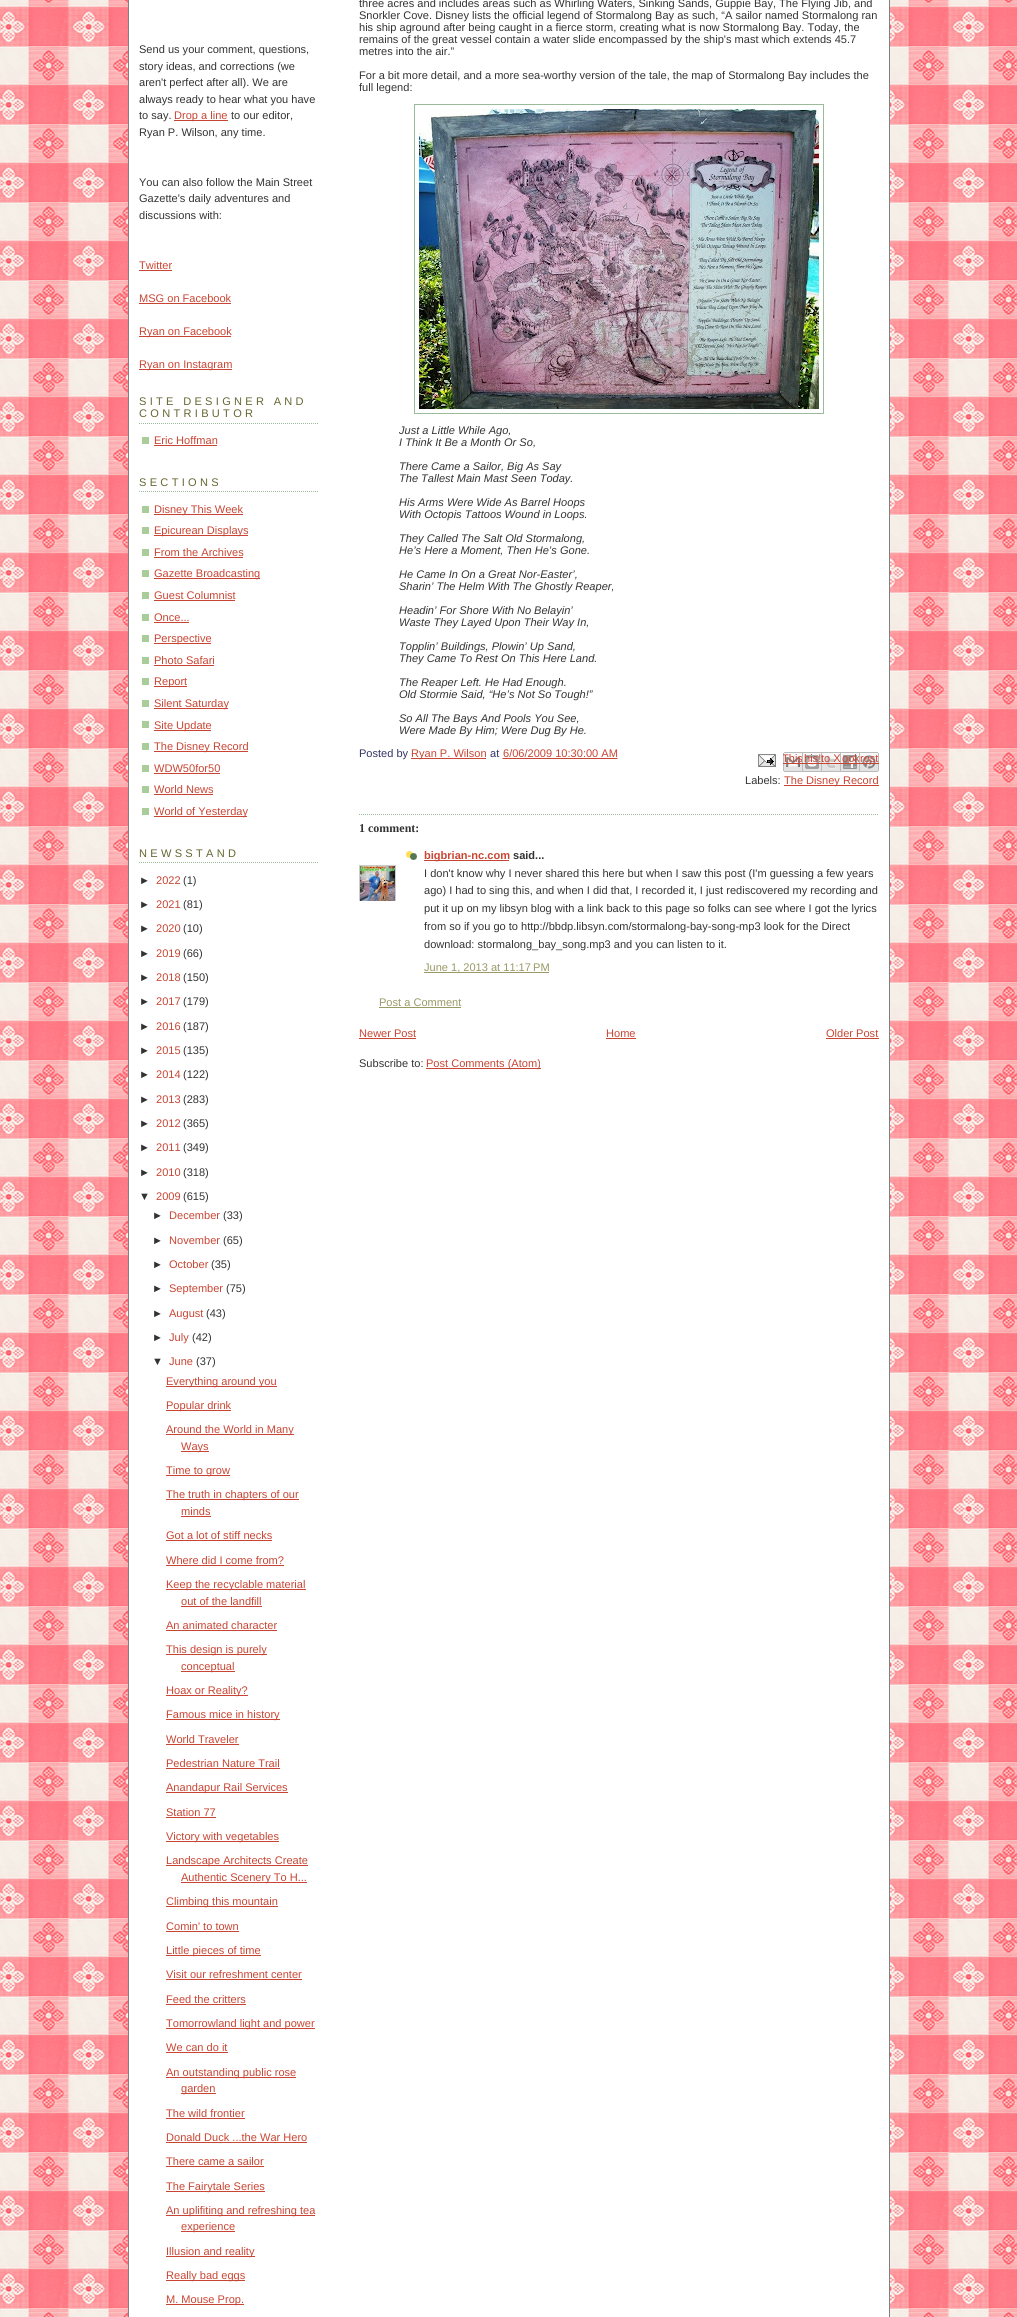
#include <cairo/cairo.h>
#include <math.h>
#include <stddef.h>

typedef struct { double x, y; const char *s; } line_t;
typedef struct { double x, y, w, h; unsigned color; } box_t;
static cairo_t *cr;

static void rgb(unsigned color)
{
	cairo_set_source_rgb(cr, (color >> 16) / 255.0, (color >> 8 & 255) / 255.0, (color & 255) / 255.0);
}

static void tracked(double x, double y, const char *s, double letter, double word)
{
	cairo_move_to(cr, x, y);
	while (*s) {
		char ch[5] = {0};
		int n = 0;
		do ch[n++] = *s++; while ((*s & 0xC0) == 0x80);
		cairo_show_text(cr, ch);
		cairo_rel_move_to(cr, letter + word * (*ch == ' '), 0);
	}
}

static void image(const char *path, double x, double y, double w, double h)
{
	cairo_surface_t *image = cairo_image_surface_create_from_png(path);
	cairo_save(cr);
	cairo_set_source_surface(cr, image, x, y);
	cairo_rectangle(cr, x, y, w, h);
	cairo_fill(cr);
	cairo_restore(cr);
	cairo_surface_destroy(image);
}

int main(void) {
	cairo_surface_t *surface = cairo_image_surface_create(CAIRO_FORMAT_RGB24, 1017, 2317);
	cr = cairo_create(surface);
	cairo_font_options_t *options = cairo_font_options_create();
	cairo_font_options_set_hint_metrics(options, CAIRO_HINT_METRICS_OFF);
	cairo_font_options_set_hint_style(options, CAIRO_HINT_STYLE_NONE);
	cairo_set_font_options(cr, options);
	cairo_set_miter_limit(cr, 4);
	rgb(0xffffff);
	cairo_paint(cr);
	image("img/1.png", 0, 0, 1017, 2317);
	rgb(0xffffff);
	cairo_rectangle(cr, 128.5, -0.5, 761, 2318);
	cairo_fill_preserve(cr);
	rgb(0x808080);
	cairo_set_line_width(cr, 1);
	cairo_stroke(cr);
	{
		static const box_t items[] = {
			{174, 120, 54, 1, 0xc84533},
			{139, 270, 33, 1, 0xc84533},
			{139, 303, 92, 1, 0xc84533},
			{139, 336, 92, 1, 0xc84533},
			{139, 369, 93, 1, 0xc84533},
		};
		for (size_t i = 0; i < sizeof items / sizeof *items; i++) {
			rgb(items[i].color);
			cairo_rectangle(cr, items[i].x, items[i].y, items[i].w, items[i].h);
			cairo_fill(cr);
		}
	}
	cairo_new_path(cr);
	cairo_move_to(cr, 139, 423.5);
	cairo_line_to(cr, 319, 423.5);
	rgb(0x99bb99);
	cairo_set_dash(cr, (double[]){1, 1}, 2, 0);
	cairo_stroke(cr);
	rgb(0xaacc99);
	cairo_rectangle(cr, 142, 437, 7, 7);
	cairo_fill(cr);
	rgb(0xc84533);
	cairo_rectangle(cr, 154, 445, 63, 1);
	cairo_fill(cr);
	cairo_new_path(cr);
	cairo_move_to(cr, 139, 491.5);
	cairo_line_to(cr, 319, 491.5);
	rgb(0x99bb99);
	cairo_stroke(cr);
	{
		static const box_t items[] = {
			{142, 506, 7, 7, 0xaacc99},
			{154, 514, 89, 1, 0xc84533},
			{142, 527, 7, 7, 0xaacc99},
			{154, 535, 94, 1, 0xc84533},
			{142, 549, 7, 7, 0xaacc99},
			{154, 557, 89, 1, 0xc84533},
			{142, 570, 7, 7, 0xaacc99},
			{154, 578, 106, 1, 0xc84533},
			{142, 592, 7, 7, 0xaacc99},
			{154, 600, 81, 1, 0xc84533},
			{142, 614, 7, 7, 0xaacc99},
			{154, 622, 35, 1, 0xc84533},
			{142, 635, 7, 7, 0xaacc99},
			{154, 643, 57, 1, 0xc84533},
			{142, 657, 7, 7, 0xaacc99},
			{154, 665, 60, 1, 0xc84533},
			{142, 678, 7, 7, 0xaacc99},
			{154, 686, 33, 1, 0xc84533},
			{142, 700, 7, 7, 0xaacc99},
			{154, 708, 74, 1, 0xc84533},
			{142, 721, 7, 7, 0xaacc99},
			{154, 730, 57, 1, 0xc84533},
			{142, 743, 7, 7, 0xaacc99},
			{154, 751, 94, 1, 0xc84533},
			{142, 765, 7, 7, 0xaacc99},
			{154, 773, 66, 1, 0xc84533},
			{142, 786, 7, 7, 0xaacc99},
			{154, 794, 59, 1, 0xc84533},
			{142, 808, 7, 7, 0xaacc99},
			{154, 816, 93, 1, 0xc84533},
		};
		for (size_t i = 0; i < sizeof items / sizeof *items; i++) {
			rgb(items[i].color);
			cairo_rectangle(cr, items[i].x, items[i].y, items[i].w, items[i].h);
			cairo_fill(cr);
		}
	}
	cairo_new_path(cr);
	cairo_move_to(cr, 139, 862.5);
	cairo_line_to(cr, 319, 862.5);
	rgb(0x99bb99);
	cairo_stroke(cr);
	{
		static const box_t items[] = {
			{166, 1386, 111, 1, 0xc84533},
			{166, 1410, 65, 1, 0xc84533},
			{166, 1434, 128, 1, 0xc84533},
			{181, 1451, 28, 1, 0xc84533},
			{166, 1475, 64, 1, 0xc84533},
			{166, 1499, 133, 1, 0xc84533},
			{181, 1516, 30, 1, 0xc84533},
			{166, 1540, 106, 1, 0xc84533},
			{166, 1565, 118, 1, 0xc84533},
			{166, 1589, 140, 1, 0xc84533},
			{181, 1606, 81, 1, 0xc84533},
			{166, 1630, 111, 1, 0xc84533},
			{166, 1654, 101, 1, 0xc84533},
			{181, 1671, 54, 1, 0xc84533},
			{166, 1695, 82, 1, 0xc84533},
			{166, 1719, 114, 1, 0xc84533},
			{166, 1744, 73, 1, 0xc84533},
			{166, 1768, 114, 1, 0xc84533},
			{166, 1792, 122, 1, 0xc84533},
			{166, 1817, 50, 1, 0xc84533},
			{166, 1841, 113, 1, 0xc84533},
			{166, 1865, 142, 1, 0xc84533},
			{181, 1882, 126, 1, 0xc84533},
			{166, 1906, 112, 1, 0xc84533},
			{166, 1931, 73, 1, 0xc84533},
			{166, 1955, 95, 1, 0xc84533},
			{166, 1979, 136, 1, 0xc84533},
			{166, 2004, 80, 1, 0xc84533},
			{166, 2028, 149, 1, 0xc84533},
			{166, 2052, 62, 1, 0xc84533},
			{166, 2077, 130, 1, 0xc84533},
			{181, 2093, 35, 1, 0xc84533},
			{166, 2118, 79, 1, 0xc84533},
			{166, 2142, 141, 1, 0xc84533},
			{166, 2166, 98, 1, 0xc84533},
			{166, 2191, 99, 1, 0xc84533},
			{166, 2215, 149, 1, 0xc84533},
			{181, 2231, 54, 1, 0xc84533},
			{166, 2256, 89, 1, 0xc84533},
			{166, 2280, 79, 1, 0xc84533},
			{166, 2304, 78, 1, 0xc84533},
		};
		for (size_t i = 0; i < sizeof items / sizeof *items; i++) {
			rgb(items[i].color);
			cairo_rectangle(cr, items[i].x, items[i].y, items[i].w, items[i].h);
			cairo_fill(cr);
		}
	}
	cairo_rectangle(cr, 414.5, 104.5, 409, 309);
	rgb(0x99bb99);
	cairo_set_dash(cr, NULL, 0, 0);
	cairo_stroke(cr);
	image("img/2.png", 419, 109, 400, 300);
	rgb(0xc84533);
	cairo_rectangle(cr, 411, 758, 75, 1);
	cairo_fill(cr);
	cairo_new_path(cr);
	cairo_move_to(cr, 502.5, 758.5);
	cairo_line_to(cr, 617.5, 758.5);
	cairo_set_dash(cr, (double[]){1, 1}, 2, 0);
	cairo_stroke(cr);
	cairo_rectangle(cr, 503, 758, 114, 1);
	cairo_fill(cr);
	image("img/3.png", 758, 754, 18, 13);
	image("img/4.png", 783, 752, 19, 20);
	cairo_rectangle(cr, 783, 763, 20, 1);
	cairo_fill(cr);
	cairo_rectangle(cr, 784, 785, 95, 1);
	cairo_fill(cr);
	cairo_new_path(cr);
	cairo_move_to(cr, 359, 814.5);
	cairo_line_to(cr, 879, 814.5);
	rgb(0x99bb99);
	cairo_stroke(cr);
	image("img/9.png", 406, 851, 11, 9);
	rgb(0xc84533);
	cairo_rectangle(cr, 424, 860, 85, 1);
	cairo_fill(cr);
	cairo_save(cr);
	cairo_rectangle(cr, 359, 865, 37, 36);
	cairo_clip(cr);
	cairo_rectangle(cr, 359.5, 865.5, 36, 36);
	rgb(0xcccccc);
	cairo_set_dash(cr, NULL, 0, 0);
	cairo_stroke(cr);
	cairo_restore(cr);
	image("img/10.png", 360, 866, 35, 35);
	{
		static const box_t items[] = {
			{424, 972, 125, 1, 0x999966},
			{379, 1007, 82, 1, 0x999966},
			{359, 1038, 57, 1, 0xc84533},
			{606, 1038, 30, 1, 0xc84533},
			{826, 1038, 53, 1, 0xc84533},
			{426, 1068, 115, 1, 0xc84533},
		};
		for (size_t i = 0; i < sizeof items / sizeof *items; i++) {
			rgb(items[i].color);
			cairo_rectangle(cr, items[i].x, items[i].y, items[i].w, items[i].h);
			cairo_fill(cr);
		}
	}
	cairo_select_font_face(cr, "Liberation Sans", CAIRO_FONT_SLANT_NORMAL, CAIRO_FONT_WEIGHT_NORMAL);
	cairo_set_font_size(cr, 11.05);
	rgb(0x333333);
	{
		static const line_t items[] = {
			{139, 53, "Send us your comment, questions,"},
			{139, 70, "story ideas, and corrections (we"},
			{139, 86, "aren't perfect after all). We are"},
			{139, 103, "always ready to hear what you have"},
			{139, 119, "to say."},
		};
		for (size_t i = 0; i < sizeof items / sizeof *items; i++) {
			cairo_move_to(cr, items[i].x, items[i].y);
			cairo_show_text(cr, items[i].s);
		}
	}
	rgb(0xc84533);
	cairo_move_to(cr, 174, 119);
	cairo_show_text(cr, "Drop a line");
	rgb(0x333333);
	{
		static const line_t items[] = {
			{231, 119, "to our editor,"},
			{139, 136, "Ryan P. Wilson, any time."},
			{139, 186, "You can also follow the Main Street"},
			{139, 202, "Gazette's daily adventures and"},
			{139, 219, "discussions with:"},
		};
		for (size_t i = 0; i < sizeof items / sizeof *items; i++) {
			cairo_move_to(cr, items[i].x, items[i].y);
			cairo_show_text(cr, items[i].s);
		}
	}
	rgb(0xc84533);
	{
		static const line_t items[] = {
			{139, 269, "Twitter"},
			{139, 302, "MSG on Facebook"},
			{139, 335, "Ryan on Facebook"},
			{139, 368, "Ryan on Instagram"},
		};
		for (size_t i = 0; i < sizeof items / sizeof *items; i++) {
			cairo_move_to(cr, items[i].x, items[i].y);
			cairo_show_text(cr, items[i].s);
		}
	}
	rgb(0x666633);
	tracked(139, 405, "SITE DESIGNER AND", 3.3, 0);
	tracked(139, 417, "CONTRIBUTOR", 3.3, 0);
	rgb(0xc84533);
	cairo_move_to(cr, 154, 444);
	cairo_show_text(cr, "Eric Hoffman");
	rgb(0x666633);
	tracked(139, 486, "SECTIONS", 3.3, 0);
	rgb(0xc84533);
	{
		static const line_t items[] = {
			{154, 513, "Disney This Week"},
			{154, 534, "Epicurean Displays"},
			{154, 556, "From the Archives"},
			{154, 577, "Gazette Broadcasting"},
			{154, 599, "Guest Columnist"},
			{154, 621, "Once..."},
			{154, 642, "Perspective"},
			{154, 664, "Photo Safari"},
			{154, 685, "Report"},
			{154, 707, "Silent Saturday"},
			{154, 729, "Site Update"},
			{154, 750, "The Disney Record"},
			{154, 772, "WDW50for50"},
			{154, 793, "World News"},
			{154, 815, "World of Yesterday"},
		};
		for (size_t i = 0; i < sizeof items / sizeof *items; i++) {
			cairo_move_to(cr, items[i].x, items[i].y);
			cairo_show_text(cr, items[i].s);
		}
	}
	rgb(0x666633);
	tracked(139, 857, "NEWSSTAND", 3.3, 0);
	rgb(0x333333);
	cairo_move_to(cr, 139, 884);
	cairo_show_text(cr, "►");
	rgb(0xc84533);
	cairo_move_to(cr, 156, 884);
	cairo_show_text(cr, "2022");
	rgb(0x333333);
	cairo_move_to(cr, 183, 884);
	cairo_show_text(cr, "(1)");
	cairo_move_to(cr, 139, 908);
	cairo_show_text(cr, "►");
	rgb(0xc84533);
	cairo_move_to(cr, 156, 908);
	cairo_show_text(cr, "2021");
	rgb(0x333333);
	cairo_move_to(cr, 183, 908);
	cairo_show_text(cr, "(81)");
	cairo_move_to(cr, 139, 932);
	cairo_show_text(cr, "►");
	rgb(0xc84533);
	cairo_move_to(cr, 156, 932);
	cairo_show_text(cr, "2020");
	rgb(0x333333);
	cairo_move_to(cr, 183, 932);
	cairo_show_text(cr, "(10)");
	cairo_move_to(cr, 139, 957);
	cairo_show_text(cr, "►");
	rgb(0xc84533);
	cairo_move_to(cr, 156, 957);
	cairo_show_text(cr, "2019");
	rgb(0x333333);
	cairo_move_to(cr, 183, 957);
	cairo_show_text(cr, "(66)");
	cairo_move_to(cr, 139, 981);
	cairo_show_text(cr, "►");
	rgb(0xc84533);
	cairo_move_to(cr, 156, 981);
	cairo_show_text(cr, "2018");
	rgb(0x333333);
	cairo_move_to(cr, 183, 981);
	cairo_show_text(cr, "(150)");
	cairo_move_to(cr, 139, 1005);
	cairo_show_text(cr, "►");
	rgb(0xc84533);
	cairo_move_to(cr, 156, 1005);
	cairo_show_text(cr, "2017");
	rgb(0x333333);
	cairo_move_to(cr, 183, 1005);
	cairo_show_text(cr, "(179)");
	cairo_move_to(cr, 139, 1030);
	cairo_show_text(cr, "►");
	rgb(0xc84533);
	cairo_move_to(cr, 156, 1030);
	cairo_show_text(cr, "2016");
	rgb(0x333333);
	cairo_move_to(cr, 183, 1030);
	cairo_show_text(cr, "(187)");
	cairo_move_to(cr, 139, 1054);
	cairo_show_text(cr, "►");
	rgb(0xc84533);
	cairo_move_to(cr, 156, 1054);
	cairo_show_text(cr, "2015");
	rgb(0x333333);
	cairo_move_to(cr, 183, 1054);
	cairo_show_text(cr, "(135)");
	cairo_move_to(cr, 139, 1078);
	cairo_show_text(cr, "►");
	rgb(0xc84533);
	cairo_move_to(cr, 156, 1078);
	cairo_show_text(cr, "2014");
	rgb(0x333333);
	cairo_move_to(cr, 183, 1078);
	cairo_show_text(cr, "(122)");
	cairo_move_to(cr, 139, 1103);
	cairo_show_text(cr, "►");
	rgb(0xc84533);
	cairo_move_to(cr, 156, 1103);
	cairo_show_text(cr, "2013");
	rgb(0x333333);
	cairo_move_to(cr, 183, 1103);
	cairo_show_text(cr, "(283)");
	cairo_move_to(cr, 139, 1127);
	cairo_show_text(cr, "►");
	rgb(0xc84533);
	cairo_move_to(cr, 156, 1127);
	cairo_show_text(cr, "2012");
	rgb(0x333333);
	cairo_move_to(cr, 183, 1127);
	cairo_show_text(cr, "(365)");
	cairo_move_to(cr, 139, 1151);
	cairo_show_text(cr, "►");
	rgb(0xc84533);
	cairo_move_to(cr, 156, 1151);
	cairo_show_text(cr, "2011");
	rgb(0x333333);
	cairo_move_to(cr, 183, 1151);
	cairo_show_text(cr, "(349)");
	cairo_move_to(cr, 139, 1176);
	cairo_show_text(cr, "►");
	rgb(0xc84533);
	cairo_move_to(cr, 156, 1176);
	cairo_show_text(cr, "2010");
	rgb(0x333333);
	cairo_move_to(cr, 183, 1176);
	cairo_show_text(cr, "(318)");
	cairo_move_to(cr, 139, 1200);
	cairo_show_text(cr, "▼");
	rgb(0xc84533);
	cairo_move_to(cr, 156, 1200);
	cairo_show_text(cr, "2009");
	rgb(0x333333);
	cairo_move_to(cr, 183, 1200);
	cairo_show_text(cr, "(615)");
	cairo_move_to(cr, 152, 1219);
	cairo_show_text(cr, "►");
	rgb(0xc84533);
	cairo_move_to(cr, 169, 1219);
	cairo_show_text(cr, "December");
	rgb(0x333333);
	cairo_move_to(cr, 223, 1219);
	cairo_show_text(cr, "(33)");
	cairo_move_to(cr, 152, 1244);
	cairo_show_text(cr, "►");
	rgb(0xc84533);
	cairo_move_to(cr, 169, 1244);
	cairo_show_text(cr, "November");
	rgb(0x333333);
	cairo_move_to(cr, 223, 1244);
	cairo_show_text(cr, "(65)");
	cairo_move_to(cr, 152, 1268);
	cairo_show_text(cr, "►");
	rgb(0xc84533);
	cairo_move_to(cr, 169, 1268);
	cairo_show_text(cr, "October");
	rgb(0x333333);
	cairo_move_to(cr, 211, 1268);
	cairo_show_text(cr, "(35)");
	cairo_move_to(cr, 152, 1292);
	cairo_show_text(cr, "►");
	rgb(0xc84533);
	cairo_move_to(cr, 169, 1292);
	cairo_show_text(cr, "September");
	rgb(0x333333);
	cairo_move_to(cr, 226, 1292);
	cairo_show_text(cr, "(75)");
	cairo_move_to(cr, 152, 1317);
	cairo_show_text(cr, "►");
	rgb(0xc84533);
	cairo_move_to(cr, 169, 1317);
	cairo_show_text(cr, "August");
	rgb(0x333333);
	cairo_move_to(cr, 206, 1317);
	cairo_show_text(cr, "(43)");
	cairo_move_to(cr, 152, 1341);
	cairo_show_text(cr, "►");
	rgb(0xc84533);
	cairo_move_to(cr, 169, 1341);
	cairo_show_text(cr, "July");
	rgb(0x333333);
	cairo_move_to(cr, 192, 1341);
	cairo_show_text(cr, "(42)");
	cairo_move_to(cr, 152, 1365);
	cairo_show_text(cr, "▼");
	rgb(0xc84533);
	cairo_move_to(cr, 169, 1365);
	cairo_show_text(cr, "June");
	rgb(0x333333);
	cairo_move_to(cr, 196, 1365);
	cairo_show_text(cr, "(37)");
	rgb(0xc84533);
	{
		static const line_t items[] = {
			{166, 1385, "Everything around you"},
			{166, 1409, "Popular drink"},
			{166, 1433, "Around the World in Many"},
			{181, 1450, "Ways"},
			{166, 1474, "Time to grow"},
			{166, 1498, "The truth in chapters of our"},
			{181, 1515, "minds"},
			{166, 1539, "Got a lot of stiff necks"},
			{166, 1564, "Where did I come from?"},
			{166, 1588, "Keep the recyclable material"},
			{181, 1605, "out of the landfill"},
			{166, 1629, "An animated character"},
			{166, 1653, "This design is purely"},
			{181, 1670, "conceptual"},
			{166, 1694, "Hoax or Reality?"},
			{166, 1718, "Famous mice in history"},
			{166, 1743, "World Traveler"},
			{166, 1767, "Pedestrian Nature Trail"},
			{166, 1791, "Anandapur Rail Services"},
			{166, 1816, "Station 77"},
			{166, 1840, "Victory with vegetables"},
			{166, 1864, "Landscape Architects Create"},
			{181, 1881, "Authentic Scenery To H..."},
			{166, 1905, "Climbing this mountain"},
			{166, 1930, "Comin' to town"},
			{166, 1954, "Little pieces of time"},
			{166, 1978, "Visit our refreshment center"},
			{166, 2003, "Feed the critters"},
			{166, 2027, "Tomorrowland light and power"},
			{166, 2051, "We can do it"},
			{166, 2076, "An outstanding public rose"},
			{181, 2092, "garden"},
			{166, 2117, "The wild frontier"},
			{166, 2141, "Donald Duck ...the War Hero"},
			{166, 2165, "There came a sailor"},
			{166, 2190, "The Fairytale Series"},
			{166, 2214, "An uplifiting and refreshing tea"},
			{181, 2230, "experience"},
			{166, 2255, "Illusion and reality"},
			{166, 2279, "Really bad eggs"},
			{166, 2303, "M. Mouse Prop."},
		};
		for (size_t i = 0; i < sizeof items / sizeof *items; i++) {
			cairo_move_to(cr, items[i].x, items[i].y);
			cairo_show_text(cr, items[i].s);
		}
	}
	rgb(0x333333);
	{
		static const line_t items[] = {
			{359, 7, "three acres and includes areas such as Whirling Waters, Sinking Sands, Guppie Bay, The Flying Jib, and"},
			{359, 19, "Snorkler Cove. Disney lists the official legend of Stormalong Bay as such, “A sailor named Stormalong ran"},
			{359, 31, "his ship aground after being caught in a fierce storm, creating what is now Stormalong Bay. Today, the"},
			{359, 43, "remains of the great vessel contain a water slide encompassed by the ship's mast which extends 45.7"},
			{359, 55, "metres into the air.”"},
			{359, 79, "For a bit more detail, and a more sea-worthy version of the tale, the map of Stormalong Bay includes the"},
			{359, 91, "full legend:"},
		};
		for (size_t i = 0; i < sizeof items / sizeof *items; i++) {
			cairo_move_to(cr, items[i].x, items[i].y);
			cairo_show_text(cr, items[i].s);
		}
	}
	cairo_select_font_face(cr, "Liberation Sans", CAIRO_FONT_SLANT_ITALIC, CAIRO_FONT_WEIGHT_NORMAL);
	{
		static const line_t items[] = {
			{399, 434, "Just a Little While Ago,"},
			{399, 446, "I Think It Be a Month Or So,"},
			{399, 470, "There Came a Sailor, Big As Say"},
			{399, 482, "The Tallest Main Mast Seen Today."},
			{399, 506, "His Arms Were Wide As Barrel Hoops"},
			{399, 518, "With Octopis Tattoos Wound in Loops."},
			{399, 542, "They Called The Salt Old Stormalong,"},
			{399, 554, "He’s Here a Moment, Then He’s Gone."},
			{399, 578, "He Came In On a Great Nor-Easter’,"},
			{399, 590, "Sharin’ The Helm With The Ghostly Reaper,"},
			{399, 614, "Headin’ For Shore With No Belayin’"},
			{399, 626, "Waste They Layed Upon Their Way In,"},
			{399, 650, "Topplin’ Buildings, Plowin’ Up Sand,"},
			{399, 662, "They Came To Rest On This Here Land."},
			{399, 686, "The Reaper Left. He Had Enough."},
			{399, 698, "Old Stormie Said, “He’s Not So Tough!”"},
			{399, 722, "So All The Bays And Pools You See,"},
			{399, 734, "Were Made By Him; Were Dug By He."},
		};
		for (size_t i = 0; i < sizeof items / sizeof *items; i++) {
			cairo_move_to(cr, items[i].x, items[i].y);
			cairo_show_text(cr, items[i].s);
		}
	}
	cairo_select_font_face(cr, "Liberation Sans", CAIRO_FONT_SLANT_NORMAL, CAIRO_FONT_WEIGHT_NORMAL);
	rgb(0x333366);
	cairo_move_to(cr, 359, 757);
	cairo_show_text(cr, "Posted by");
	rgb(0xc84533);
	cairo_move_to(cr, 411, 757);
	cairo_show_text(cr, "Ryan P. Wilson");
	rgb(0x333366);
	cairo_move_to(cr, 490, 757);
	cairo_show_text(cr, "at");
	rgb(0xc84533);
	cairo_move_to(cr, 503, 757);
	cairo_show_text(cr, "6/06/2009 10:30:00 AM");
	cairo_save(cr);
	cairo_rectangle(cr, 783, 752, 20, 20);
	cairo_clip(cr);
	cairo_move_to(cr, 782, 762);
	cairo_show_text(cr, "This");
	cairo_restore(cr);
	image("img/5.png", 802, 752, 19, 20);
	cairo_move_to(cr, 804, 762);
	cairo_show_text(cr, "his!");
	cairo_rectangle(cr, 802, 763, 20, 1);
	cairo_fill(cr);
	image("img/6.png", 821, 752, 19, 20);
	cairo_move_to(cr, 821, 762);
	cairo_show_text(cr, "to X");
	cairo_rectangle(cr, 821, 763, 20, 1);
	cairo_fill(cr);
	image("img/7.png", 840, 752, 19, 20);
	cairo_move_to(cr, 842, 762);
	cairo_show_text(cr, "ook");
	cairo_rectangle(cr, 840, 763, 20, 1);
	cairo_fill(cr);
	image("img/8.png", 859, 752, 20, 20);
	cairo_move_to(cr, 860, 762);
	cairo_show_text(cr, "rest");
	cairo_rectangle(cr, 859, 763, 20, 1);
	cairo_fill(cr);
	rgb(0x333333);
	cairo_move_to(cr, 745, 784);
	cairo_show_text(cr, "Labels:");
	rgb(0xc84533);
	cairo_move_to(cr, 784, 784);
	cairo_show_text(cr, "The Disney Record");
	cairo_select_font_face(cr, "Liberation Serif", CAIRO_FONT_SLANT_NORMAL, CAIRO_FONT_WEIGHT_BOLD);
	cairo_set_font_size(cr, 12);
	rgb(0x333333);
	cairo_move_to(cr, 359, 832);
	cairo_show_text(cr, "1 comment:");
	cairo_select_font_face(cr, "Liberation Sans", CAIRO_FONT_SLANT_NORMAL, CAIRO_FONT_WEIGHT_BOLD);
	cairo_set_font_size(cr, 11.05);
	rgb(0xc84533);
	cairo_move_to(cr, 424, 859);
	cairo_show_text(cr, "bigbrian-nc.com");
	rgb(0x333333);
	cairo_move_to(cr, 513, 859);
	cairo_show_text(cr, "said...");
	cairo_select_font_face(cr, "Liberation Sans", CAIRO_FONT_SLANT_NORMAL, CAIRO_FONT_WEIGHT_NORMAL);
	{
		static const line_t items[] = {
			{424, 877, "I don't know why I never shared this here but when I saw this post (I'm guessing a few years"},
			{424, 894, "ago) I had to sing this, and when I did that, I recorded it, I just rediscovered my recording and"},
			{424, 912, "put it up on my libsyn blog with a link back to this page so folks can see where I got the lyrics"},
			{424, 930, "from so if you go to http://bbdp.libsyn.com/stormalong-bay-song-mp3 look for the Direct"},
			{424, 948, "download: stormalong_bay_song.mp3 and you can listen to it."},
		};
		for (size_t i = 0; i < sizeof items / sizeof *items; i++) {
			cairo_move_to(cr, items[i].x, items[i].y);
			cairo_show_text(cr, items[i].s);
		}
	}
	rgb(0x999966);
	cairo_move_to(cr, 424, 971);
	cairo_show_text(cr, "June 1, 2013 at 11:17 PM");
	cairo_move_to(cr, 379, 1006);
	cairo_show_text(cr, "Post a Comment");
	rgb(0xc84533);
	{
		static const line_t items[] = {
			{359, 1037, "Newer Post"},
			{606, 1037, "Home"},
			{826, 1037, "Older Post"},
		};
		for (size_t i = 0; i < sizeof items / sizeof *items; i++) {
			cairo_move_to(cr, items[i].x, items[i].y);
			cairo_show_text(cr, items[i].s);
		}
	}
	rgb(0x333333);
	cairo_move_to(cr, 359, 1067);
	cairo_show_text(cr, "Subscribe to:");
	rgb(0xc84533);
	cairo_move_to(cr, 426, 1067);
	cairo_show_text(cr, "Post Comments (Atom)");
	cairo_surface_write_to_png(surface, "page.png");
	cairo_font_options_destroy(options);
	cairo_destroy(cr);
	cairo_surface_destroy(surface);
	return 0;
}
